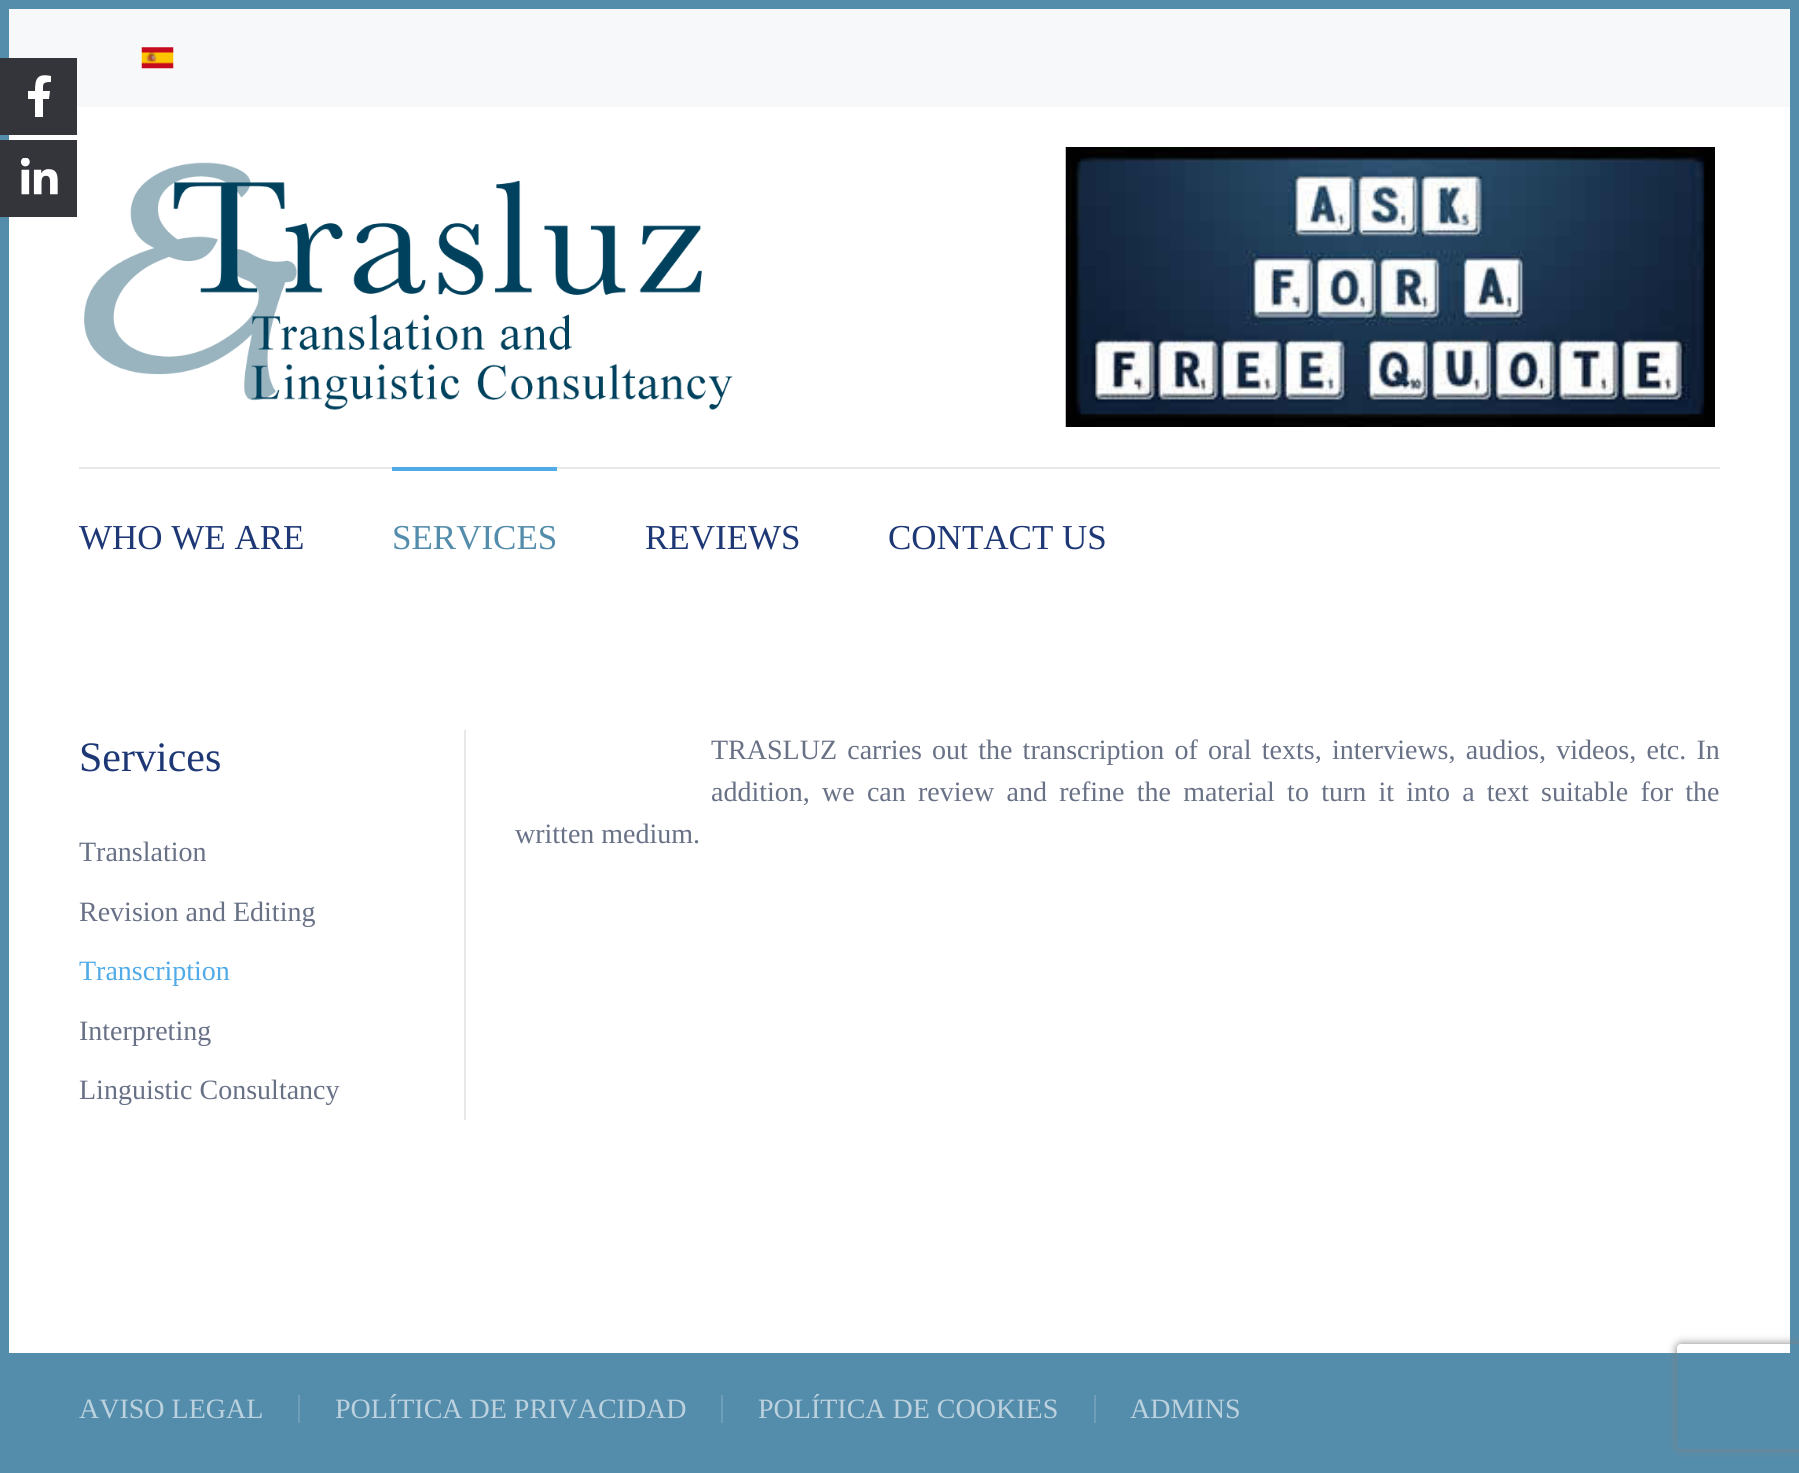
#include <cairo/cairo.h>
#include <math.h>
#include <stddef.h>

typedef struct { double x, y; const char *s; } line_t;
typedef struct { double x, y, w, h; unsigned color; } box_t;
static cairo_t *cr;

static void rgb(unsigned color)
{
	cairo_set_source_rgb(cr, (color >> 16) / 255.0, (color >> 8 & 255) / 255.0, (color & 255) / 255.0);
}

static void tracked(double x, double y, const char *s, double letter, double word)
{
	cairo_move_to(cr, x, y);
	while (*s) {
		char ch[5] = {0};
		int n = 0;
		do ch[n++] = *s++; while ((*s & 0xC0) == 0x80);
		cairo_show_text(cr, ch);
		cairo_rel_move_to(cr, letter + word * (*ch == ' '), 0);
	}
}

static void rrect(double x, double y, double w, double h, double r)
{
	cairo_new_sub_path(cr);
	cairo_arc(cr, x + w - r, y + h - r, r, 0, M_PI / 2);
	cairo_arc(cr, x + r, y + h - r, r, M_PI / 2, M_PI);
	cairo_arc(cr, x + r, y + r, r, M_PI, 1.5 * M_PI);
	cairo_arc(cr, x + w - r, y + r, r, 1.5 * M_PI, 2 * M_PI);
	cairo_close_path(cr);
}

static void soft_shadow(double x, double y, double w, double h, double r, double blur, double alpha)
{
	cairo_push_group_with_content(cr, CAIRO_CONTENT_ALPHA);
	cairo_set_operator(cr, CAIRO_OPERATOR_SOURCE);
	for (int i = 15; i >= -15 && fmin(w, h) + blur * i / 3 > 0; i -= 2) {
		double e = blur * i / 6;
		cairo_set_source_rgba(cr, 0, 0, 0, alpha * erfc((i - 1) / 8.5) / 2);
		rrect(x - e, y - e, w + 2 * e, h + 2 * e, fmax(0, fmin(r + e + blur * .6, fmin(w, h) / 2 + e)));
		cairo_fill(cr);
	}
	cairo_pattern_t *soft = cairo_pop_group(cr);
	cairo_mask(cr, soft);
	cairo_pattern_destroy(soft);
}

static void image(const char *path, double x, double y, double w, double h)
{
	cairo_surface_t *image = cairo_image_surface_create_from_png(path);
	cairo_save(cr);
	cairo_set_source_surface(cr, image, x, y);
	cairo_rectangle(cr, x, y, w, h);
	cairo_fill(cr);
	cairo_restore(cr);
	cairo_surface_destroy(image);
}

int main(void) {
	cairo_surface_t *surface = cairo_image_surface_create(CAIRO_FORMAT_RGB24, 1799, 1473);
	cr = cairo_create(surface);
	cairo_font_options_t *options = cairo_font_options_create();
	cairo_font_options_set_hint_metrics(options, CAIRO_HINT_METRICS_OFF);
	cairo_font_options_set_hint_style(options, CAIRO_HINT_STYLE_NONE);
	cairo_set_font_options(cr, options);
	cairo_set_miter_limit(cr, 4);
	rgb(0xffffff);
	cairo_paint(cr);
	cairo_rectangle(cr, 4.5, 4.5, 1790, 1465);
	rgb(0x548dac);
	cairo_set_line_width(cr, 9);
	cairo_stroke(cr);
	rgb(0xf6f8fa);
	cairo_rectangle(cr, 9, 9, 1781, 98);
	cairo_fill(cr);
	rgb(0x33353b);
	cairo_rectangle(cr, 0, 58, 77, 77);
	cairo_fill(cr);
	rgb(0xffffff);
	cairo_new_path(cr);
	cairo_move_to(cr, 49, 99);
	cairo_line_to(cr, 50, 91);
	cairo_line_to(cr, 43, 91);
	cairo_curve_to(cr, 43, 84, 42, 82, 51, 82);
	cairo_line_to(cr, 51, 76);
	cairo_curve_to(cr, 37, 73, 35, 79, 35, 91);
	cairo_line_to(cr, 28, 91);
	cairo_line_to(cr, 28, 99);
	cairo_line_to(cr, 35, 99);
	cairo_line_to(cr, 35, 117);
	cairo_line_to(cr, 43, 117);
	cairo_line_to(cr, 43, 99);
	cairo_close_path(cr);
	cairo_fill(cr);
	rgb(0x33353b);
	cairo_rectangle(cr, 0, 140, 77, 77);
	cairo_fill(cr);
	image("img/1.png", 20, 158, 38, 37);
	image("img/2.png", 141, 47, 33, 22);
	image("img/3.png", 84, 162, 649, 248);
	image("img/4.png", 1065, 147, 650, 280);
	{
		static const box_t items[] = {
			{79, 467, 1641, 2, 0xe7e8ea},
			{392, 467, 165, 4, 0x4faae7},
			{464, 730, 2, 390, 0xe7e8ea},
			{9, 1353, 1781, 112, 0x548dac},
			{298, 1395, 2, 28, 0x6e9eb8},
			{721, 1395, 2, 28, 0x6e9eb8},
			{1094, 1395, 2, 28, 0x6e9eb8},
		};
		for (size_t i = 0; i < sizeof items / sizeof *items; i++) {
			rgb(items[i].color);
			cairo_rectangle(cr, items[i].x, items[i].y, items[i].w, items[i].h);
			cairo_fill(cr);
		}
	}
	cairo_save(cr);
	cairo_set_fill_rule(cr, CAIRO_FILL_RULE_EVEN_ODD);
	cairo_new_path(cr);
	cairo_move_to(cr, 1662, 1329);
	cairo_line_to(cr, 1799, 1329);
	cairo_line_to(cr, 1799, 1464);
	cairo_line_to(cr, 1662, 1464);
	cairo_close_path(cr);
	cairo_move_to(cr, 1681, 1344);
	cairo_line_to(cr, 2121, 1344);
	cairo_curve_to(cr, 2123, 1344, 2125, 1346, 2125, 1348);
	cairo_line_to(cr, 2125, 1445);
	cairo_curve_to(cr, 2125, 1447, 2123, 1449, 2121, 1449);
	cairo_line_to(cr, 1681, 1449);
	cairo_curve_to(cr, 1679, 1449, 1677, 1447, 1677, 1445);
	cairo_line_to(cr, 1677, 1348);
	cairo_curve_to(cr, 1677, 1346, 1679, 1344, 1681, 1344);
	cairo_close_path(cr);
	cairo_clip(cr);
	rgb(0x808080);
	soft_shadow(1677, 1344, 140, 105, 4, 4.5, 1);
	cairo_restore(cr);
	cairo_select_font_face(cr, "Liberation Serif", CAIRO_FONT_SLANT_NORMAL, CAIRO_FONT_WEIGHT_NORMAL);
	cairo_set_font_size(cr, 35);
	rgb(0x1e3876);
	cairo_move_to(cr, 79, 549);
	cairo_show_text(cr, "WHO WE ARE");
	rgb(0x548dac);
	cairo_move_to(cr, 392, 549);
	cairo_show_text(cr, "SERVICES");
	rgb(0x1e3876);
	cairo_move_to(cr, 645, 549);
	cairo_show_text(cr, "REVIEWS");
	cairo_move_to(cr, 888, 549);
	cairo_show_text(cr, "CONTACT US");
	cairo_set_font_size(cr, 42);
	cairo_move_to(cr, 79, 771);
	cairo_show_text(cr, "Services");
	cairo_set_font_size(cr, 28);
	rgb(0x687186);
	cairo_move_to(cr, 79, 861);
	cairo_show_text(cr, "Translation");
	cairo_move_to(cr, 79, 921);
	cairo_show_text(cr, "Revision and Editing");
	rgb(0x4faae7);
	cairo_move_to(cr, 79, 980);
	cairo_show_text(cr, "Transcription");
	rgb(0x687186);
	cairo_move_to(cr, 79, 1040);
	cairo_show_text(cr, "Interpreting");
	cairo_move_to(cr, 79, 1099);
	cairo_show_text(cr, "Linguistic Consultancy");
	tracked(711, 759, "TRASLUZ carries out the transcription of oral texts, interviews, audios, videos, etc. In", 0, 3.25);
	tracked(711, 801, "addition, we can review and refine the material to turn it into a text suitable for the", 0, 5.25);
	cairo_move_to(cr, 515, 843);
	cairo_show_text(cr, "written medium.");
	rgb(0xbbd1de);
	{
		static const line_t items[] = {
			{79, 1418, "AVISO LEGAL"},
			{335, 1418, "POLÍTICA DE PRIVACIDAD"},
			{758, 1418, "POLÍTICA DE COOKIES"},
			{1130, 1418, "ADMINS"},
		};
		for (size_t i = 0; i < sizeof items / sizeof *items; i++) {
			cairo_move_to(cr, items[i].x, items[i].y);
			cairo_show_text(cr, items[i].s);
		}
	}
	cairo_surface_write_to_png(surface, "page.png");
	cairo_font_options_destroy(options);
	cairo_destroy(cr);
	cairo_surface_destroy(surface);
	return 0;
}
